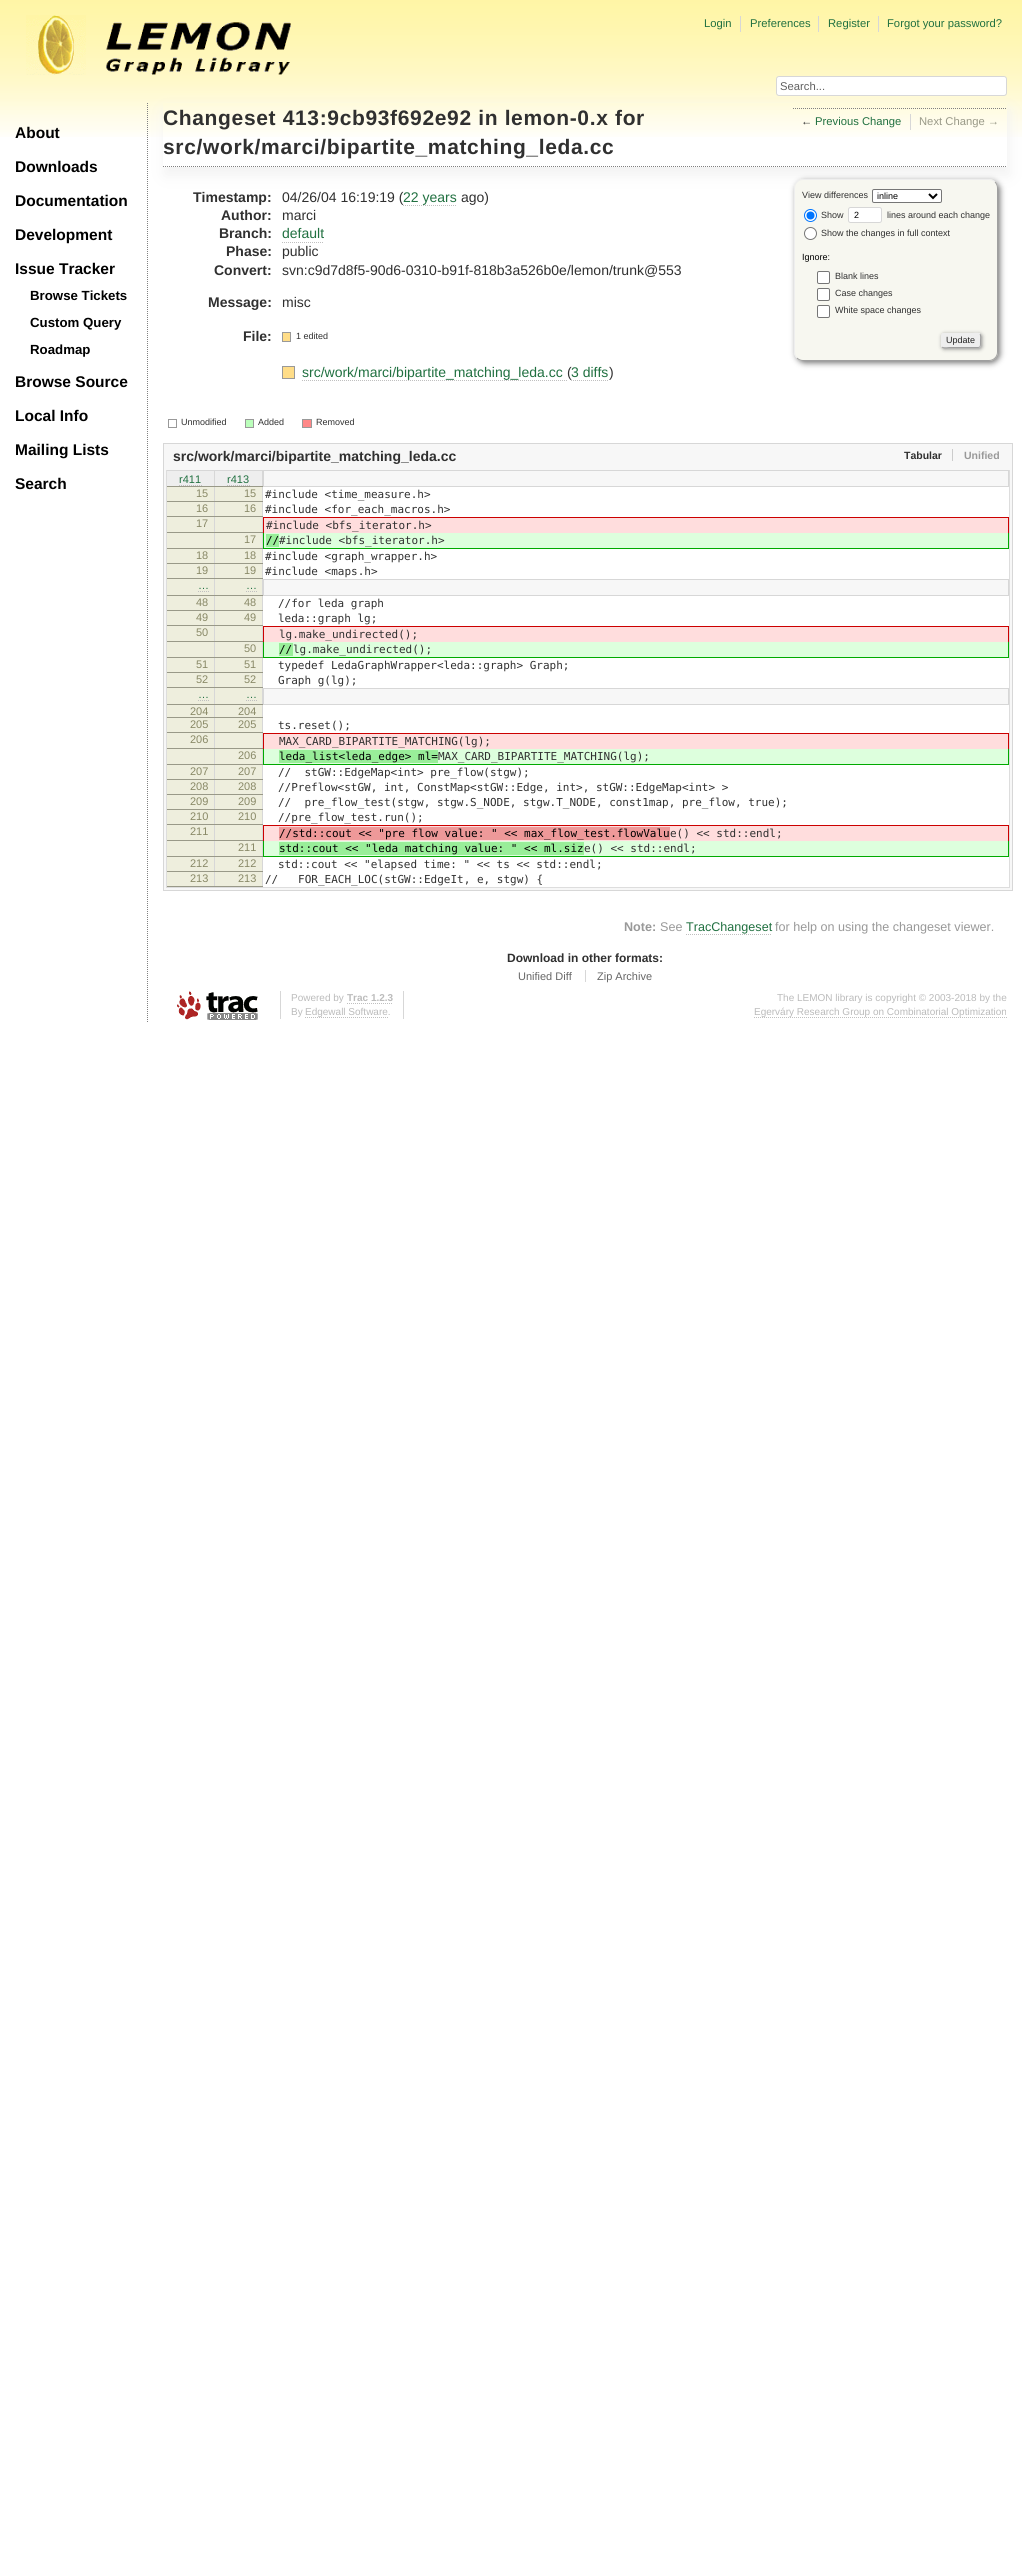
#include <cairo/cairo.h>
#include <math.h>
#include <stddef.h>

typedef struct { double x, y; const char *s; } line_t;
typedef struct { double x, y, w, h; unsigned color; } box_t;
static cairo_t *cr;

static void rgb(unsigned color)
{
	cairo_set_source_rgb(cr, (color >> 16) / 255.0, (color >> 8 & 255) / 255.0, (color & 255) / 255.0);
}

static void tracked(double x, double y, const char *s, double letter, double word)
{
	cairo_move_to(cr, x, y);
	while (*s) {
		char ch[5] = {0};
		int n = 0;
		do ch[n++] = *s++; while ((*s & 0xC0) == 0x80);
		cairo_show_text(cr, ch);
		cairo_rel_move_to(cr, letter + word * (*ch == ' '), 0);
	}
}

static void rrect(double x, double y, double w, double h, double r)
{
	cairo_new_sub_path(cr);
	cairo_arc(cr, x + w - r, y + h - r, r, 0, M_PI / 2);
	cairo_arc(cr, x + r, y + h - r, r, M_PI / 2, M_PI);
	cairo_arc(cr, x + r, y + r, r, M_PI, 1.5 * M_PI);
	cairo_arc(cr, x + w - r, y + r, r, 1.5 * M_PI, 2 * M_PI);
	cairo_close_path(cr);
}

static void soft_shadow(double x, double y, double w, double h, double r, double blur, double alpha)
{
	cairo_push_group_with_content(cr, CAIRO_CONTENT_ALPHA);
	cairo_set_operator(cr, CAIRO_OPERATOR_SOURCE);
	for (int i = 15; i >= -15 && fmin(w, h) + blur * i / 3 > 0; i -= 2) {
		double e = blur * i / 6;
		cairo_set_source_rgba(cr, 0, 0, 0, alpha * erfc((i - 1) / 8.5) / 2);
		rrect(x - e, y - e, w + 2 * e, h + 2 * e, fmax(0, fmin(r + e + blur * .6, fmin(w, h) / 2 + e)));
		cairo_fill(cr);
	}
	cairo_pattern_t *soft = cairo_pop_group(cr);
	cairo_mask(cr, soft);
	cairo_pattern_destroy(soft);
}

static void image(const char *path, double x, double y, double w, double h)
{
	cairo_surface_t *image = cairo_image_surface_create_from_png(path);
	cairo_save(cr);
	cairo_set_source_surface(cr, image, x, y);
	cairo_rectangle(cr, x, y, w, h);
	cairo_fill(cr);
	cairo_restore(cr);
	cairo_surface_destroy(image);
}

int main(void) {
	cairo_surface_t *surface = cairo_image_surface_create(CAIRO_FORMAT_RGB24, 1022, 2575);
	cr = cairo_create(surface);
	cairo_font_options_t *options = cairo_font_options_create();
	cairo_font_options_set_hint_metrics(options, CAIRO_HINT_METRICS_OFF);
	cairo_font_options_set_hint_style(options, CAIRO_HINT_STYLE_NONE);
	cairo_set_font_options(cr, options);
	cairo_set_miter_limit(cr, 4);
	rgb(0xffffff);
	cairo_paint(cr);
	image("img/1.png", 0, 0, 1022, 137);
	image("img/2.png", 26, 15, 60, 60);
	cairo_new_path(cr);
	cairo_move_to(cr, 147.5, 103);
	cairo_line_to(cr, 147.5, 1022);
	rgb(0x808080);
	cairo_set_line_width(cr, 1);
	cairo_set_dash(cr, (double[]){1, 1}, 2, 0);
	cairo_stroke(cr);
	{
		static const box_t items[] = {
			{740, 16, 1, 16, 0xd7d7d7},
			{818, 16, 1, 16, 0xd7d7d7},
			{878, 16, 1, 16, 0xd7d7d7},
		};
		for (size_t i = 0; i < sizeof items / sizeof *items; i++) {
			rgb(items[i].color);
			cairo_rectangle(cr, items[i].x, items[i].y, items[i].w, items[i].h);
			cairo_fill(cr);
		}
	}
	rgb(0xffffff);
	rrect(776.5, 76.5, 230, 19, 2.5);
	cairo_fill_preserve(cr);
	rgb(0xd7d7d7);
	cairo_set_dash(cr, NULL, 0, 0);
	cairo_stroke(cr);
	cairo_save(cr);
	cairo_set_fill_rule(cr, CAIRO_FILL_RULE_EVEN_ODD);
	cairo_new_path(cr);
	cairo_move_to(cr, 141, 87);
	cairo_line_to(cr, 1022, 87);
	cairo_line_to(cr, 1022, 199);
	cairo_line_to(cr, 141, 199);
	cairo_close_path(cr);
	cairo_move_to(cr, 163, 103);
	cairo_line_to(cr, 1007, 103);
	cairo_line_to(cr, 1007, 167);
	cairo_line_to(cr, 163, 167);
	cairo_close_path(cr);
	cairo_clip(cr);
	rgb(0xf2f2f2);
	soft_shadow(165, 111, 844, 64, 0, 7.5, 1);
	cairo_restore(cr);
	cairo_new_path(cr);
	cairo_move_to(cr, 163, 166.5);
	cairo_line_to(cr, 1007, 166.5);
	rgb(0x808080);
	cairo_set_dash(cr, (double[]){1, 1}, 2, 0);
	cairo_stroke(cr);
	cairo_new_path(cr);
	cairo_move_to(cr, 403, 205.5);
	cairo_line_to(cr, 457, 205.5);
	rgb(0xc0c0c0);
	cairo_stroke(cr);
	cairo_new_path(cr);
	cairo_move_to(cr, 282, 242.5);
	cairo_line_to(cr, 324, 242.5);
	cairo_stroke(cr);
	rgb(0xffdd88);
	cairo_rectangle(cr, 282.5, 332.5, 8, 9);
	cairo_fill_preserve(cr);
	rgb(0x999999);
	cairo_set_dash(cr, NULL, 0, 0);
	cairo_stroke(cr);
	rgb(0xffdd88);
	cairo_rectangle(cr, 282.5, 366.5, 12, 12);
	cairo_fill_preserve(cr);
	rgb(0x999999);
	cairo_stroke(cr);
	cairo_new_path(cr);
	cairo_move_to(cr, 302, 380.5);
	cairo_line_to(cr, 567, 380.5);
	rgb(0xc0c0c0);
	cairo_set_dash(cr, (double[]){1, 1}, 2, 0);
	cairo_stroke(cr);
	cairo_new_path(cr);
	cairo_move_to(cr, 571, 380.5);
	cairo_line_to(cr, 609, 380.5);
	cairo_stroke(cr);
	rgb(0x777777);
	soft_shadow(796, 181, 204, 182, 9, 3, 1);
	rgb(0xf7f7f0);
	rrect(794, 179, 204, 182, 9);
	cairo_fill(cr);
	cairo_new_path(cr);
	cairo_move_to(cr, 995, 182);
	cairo_curve_to(cr, 996.5, 183.5, 997.5, 185.5, 997.5, 188);
	cairo_line_to(cr, 997.5, 352);
	cairo_curve_to(cr, 997.5, 354.5, 996.5, 356.5, 995, 358);
	cairo_curve_to(cr, 993.5, 359.5, 991.5, 360.5, 989, 360.5);
	cairo_line_to(cr, 803, 360.5);
	cairo_curve_to(cr, 800.5, 360.5, 798.5, 359.5, 797, 358);
	rgb(0x9f9f9f);
	cairo_set_dash(cr, NULL, 0, 0);
	cairo_stroke(cr);
	cairo_new_path(cr);
	cairo_move_to(cr, 797, 358);
	cairo_curve_to(cr, 795.5, 356.5, 794.5, 354.5, 794.5, 352);
	cairo_line_to(cr, 794.5, 188);
	cairo_curve_to(cr, 794.5, 185.5, 795.5, 183.5, 797, 182);
	cairo_curve_to(cr, 798.5, 180.5, 800.5, 179.5, 803, 179.5);
	cairo_line_to(cr, 989, 179.5);
	cairo_curve_to(cr, 991.5, 179.5, 993.5, 180.5, 995, 182);
	rgb(0xeeeeee);
	cairo_stroke(cr);
	rgb(0xffffff);
	rrect(872.5, 189.5, 69, 13, 1.5);
	cairo_fill_preserve(cr);
	rgb(0x767676);
	cairo_stroke(cr);
	cairo_new_path(cr);
	cairo_move_to(cr, 929, 194);
	cairo_line_to(cr, 933, 198);
	cairo_line_to(cr, 937, 194);
	rgb(0x000000);
	cairo_set_line_width(cr, 2);
	cairo_stroke(cr);
	rgb(0xffffff);
	cairo_arc(cr, 810.5, 215.5, 6, 0, 2 * M_PI);
	cairo_fill_preserve(cr);
	rgb(0x0075ff);
	cairo_set_line_width(cr, 1);
	cairo_stroke(cr);
	cairo_arc(cr, 810.5, 215.5, 4, 0, 2 * M_PI);
	cairo_fill(cr);
	rgb(0xffffff);
	rrect(848.5, 207.5, 33, 15, 2);
	cairo_fill_preserve(cr);
	rgb(0xd7d7d7);
	cairo_stroke(cr);
	rgb(0xffffff);
	cairo_arc(cr, 810.5, 233.5, 6, 0, 2 * M_PI);
	cairo_fill_preserve(cr);
	rgb(0x767676);
	cairo_stroke(cr);
	rgb(0xffffff);
	rrect(817.5, 271.5, 12, 12, 1.5);
	cairo_fill_preserve(cr);
	rgb(0x767676);
	cairo_stroke(cr);
	rgb(0xffffff);
	rrect(817.5, 288.5, 12, 12, 1.5);
	cairo_fill_preserve(cr);
	rgb(0x767676);
	cairo_stroke(cr);
	rgb(0xffffff);
	rrect(817.5, 305.5, 12, 12, 1.5);
	cairo_fill_preserve(cr);
	rgb(0x767676);
	cairo_stroke(cr);
	rgb(0x888888);
	soft_shadow(942, 334, 40, 15, 2.5, 2, 1);
	rgb(0xeeeeee);
	rrect(941, 333, 40, 15, 2.5);
	cairo_fill(cr);
	cairo_new_path(cr);
	cairo_move_to(cr, 980, 334);
	cairo_curve_to(cr, 981, 335.5, 980.5, 339, 980.5, 340.5);
	cairo_curve_to(cr, 980.5, 348.5, 981, 347.5, 972.5, 347.5);
	cairo_line_to(cr, 949.5, 347.5);
	cairo_curve_to(cr, 949, 347.5, 943.5, 348.5, 942, 347);
	rgb(0x9f9f9f);
	cairo_stroke(cr);
	cairo_new_path(cr);
	cairo_move_to(cr, 942, 347);
	cairo_curve_to(cr, 941, 345.5, 941.5, 342, 941.5, 340.5);
	cairo_curve_to(cr, 941.5, 332.5, 941, 333.5, 949.5, 333.5);
	cairo_line_to(cr, 972.5, 333.5);
	cairo_curve_to(cr, 973, 333.5, 978.5, 332.5, 980, 334);
	rgb(0xeeeeee);
	cairo_stroke(cr);
	cairo_rectangle(cr, 168.5, 419.5, 8, 8);
	rgb(0x999999);
	cairo_stroke(cr);
	rgb(0xbbffbb);
	cairo_rectangle(cr, 245.5, 419.5, 8, 8);
	cairo_fill_preserve(cr);
	rgb(0x999999);
	cairo_stroke(cr);
	rgb(0xff8888);
	cairo_rectangle(cr, 302.5, 419.5, 9, 8);
	cairo_fill_preserve(cr);
	rgb(0x999999);
	cairo_stroke(cr);
	rgb(0xf7f7f7);
	cairo_rectangle(cr, 163.5, 443.5, 849, 447);
	cairo_fill_preserve(cr);
	rgb(0xd7d7d7);
	cairo_stroke(cr);
	{
		static const box_t items[] = {
			{952, 449, 1, 12, 0xcccccc},
			{1009, 470, 1, 418, 0xdddddd},
			{166, 887, 844, 1, 0xdddddd},
			{166, 470, 1, 418, 0xdddddd},
			{167, 471, 47, 15, 0xeeeeee},
			{167, 470, 96, 1, 0xd7d7d7},
			{214, 470, 1, 417, 0xd7d7d7},
			{167, 486, 48, 1, 0x999988},
		};
		for (size_t i = 0; i < sizeof items / sizeof *items; i++) {
			rgb(items[i].color);
			cairo_rectangle(cr, items[i].x, items[i].y, items[i].w, items[i].h);
			cairo_fill(cr);
		}
	}
	cairo_new_path(cr);
	cairo_move_to(cr, 179, 485.5);
	cairo_line_to(cr, 202, 485.5);
	rgb(0xc0c0c0);
	cairo_set_dash(cr, (double[]){1, 1}, 2, 0);
	cairo_stroke(cr);
	{
		static const box_t items[] = {
			{215, 471, 47, 15, 0xeeeeee},
			{262, 470, 1, 417, 0xd7d7d7},
			{215, 486, 48, 1, 0x999988},
		};
		for (size_t i = 0; i < sizeof items / sizeof *items; i++) {
			rgb(items[i].color);
			cairo_rectangle(cr, items[i].x, items[i].y, items[i].w, items[i].h);
			cairo_fill(cr);
		}
	}
	cairo_new_path(cr);
	cairo_move_to(cr, 227, 485.5);
	cairo_line_to(cr, 250, 485.5);
	rgb(0xc0c0c0);
	cairo_stroke(cr);
	cairo_rectangle(cr, 263.5, 470.5, 745, 16);
	rgb(0xd7d7d7);
	cairo_set_dash(cr, NULL, 0, 0);
	cairo_stroke(cr);
	{
		static const box_t items[] = {
			{167, 487, 47, 14, 0xeeeedd},
			{167, 501, 96, 1, 0x999988},
			{215, 487, 47, 14, 0xeeeedd},
			{263, 487, 746, 30, 0xffffff},
			{167, 502, 47, 14, 0xeeeedd},
			{167, 516, 96, 1, 0x999988},
			{215, 502, 47, 14, 0xeeeedd},
			{167, 517, 47, 15, 0xeeeedd},
			{167, 532, 96, 1, 0x999988},
			{215, 517, 47, 15, 0xeeeedd},
			{264, 518, 744, 15, 0xffdddd},
			{263, 517, 746, 1, 0xcc0000},
			{1008, 517, 1, 16, 0xcc0000},
			{263, 517, 1, 16, 0xcc0000},
			{167, 533, 47, 15, 0xeeeedd},
			{167, 548, 96, 1, 0x999988},
			{215, 533, 47, 15, 0xeeeedd},
			{264, 533, 744, 15, 0xddffdd},
			{1008, 533, 1, 16, 0x00aa00},
			{263, 548, 746, 1, 0x00aa00},
			{263, 533, 1, 16, 0x00aa00},
			{266, 534, 13, 13, 0x99ee99},
			{167, 549, 47, 14, 0xeeeedd},
			{167, 563, 96, 1, 0x999988},
			{215, 549, 47, 14, 0xeeeedd},
			{263, 549, 746, 30, 0xffffff},
			{167, 564, 47, 14, 0xeeeedd},
			{167, 578, 96, 1, 0x999988},
			{215, 564, 47, 14, 0xeeeedd},
			{167, 579, 47, 16, 0xeeeedd},
			{167, 595, 96, 1, 0x999988},
		};
		for (size_t i = 0; i < sizeof items / sizeof *items; i++) {
			rgb(items[i].color);
			cairo_rectangle(cr, items[i].x, items[i].y, items[i].w, items[i].h);
			cairo_fill(cr);
		}
	}
	cairo_new_path(cr);
	cairo_move_to(cr, 198, 591.5);
	cairo_line_to(cr, 209, 591.5);
	rgb(0xc0c0c0);
	cairo_set_dash(cr, (double[]){1, 1}, 2, 0);
	cairo_stroke(cr);
	rgb(0xeeeedd);
	cairo_rectangle(cr, 215, 579, 47, 16);
	cairo_fill(cr);
	cairo_new_path(cr);
	cairo_move_to(cr, 246, 591.5);
	cairo_line_to(cr, 257, 591.5);
	rgb(0xc0c0c0);
	cairo_stroke(cr);
	cairo_rectangle(cr, 263.5, 579.5, 745, 16);
	rgb(0xd7d7d7);
	cairo_set_dash(cr, NULL, 0, 0);
	cairo_stroke(cr);
	{
		static const box_t items[] = {
			{167, 596, 47, 14, 0xeeeedd},
			{167, 610, 96, 1, 0x999988},
			{215, 596, 47, 14, 0xeeeedd},
			{263, 596, 746, 30, 0xffffff},
			{167, 611, 47, 14, 0xeeeedd},
			{167, 625, 96, 1, 0x999988},
			{215, 611, 47, 14, 0xeeeedd},
			{167, 626, 47, 15, 0xeeeedd},
			{167, 641, 96, 1, 0x999988},
			{215, 626, 47, 15, 0xeeeedd},
			{264, 627, 744, 15, 0xffdddd},
			{263, 626, 746, 1, 0xcc0000},
			{1008, 626, 1, 16, 0xcc0000},
			{263, 626, 1, 16, 0xcc0000},
			{167, 642, 47, 15, 0xeeeedd},
			{167, 657, 96, 1, 0x999988},
			{215, 642, 47, 15, 0xeeeedd},
			{264, 642, 744, 15, 0xddffdd},
			{1008, 642, 1, 16, 0x00aa00},
			{263, 657, 746, 1, 0x00aa00},
			{263, 642, 1, 16, 0x00aa00},
			{279, 643, 14, 13, 0x99ee99},
			{167, 658, 47, 14, 0xeeeedd},
			{167, 672, 96, 1, 0x999988},
			{215, 658, 47, 14, 0xeeeedd},
			{263, 658, 746, 30, 0xffffff},
			{167, 673, 47, 14, 0xeeeedd},
			{167, 687, 96, 1, 0x999988},
			{215, 673, 47, 14, 0xeeeedd},
			{167, 688, 47, 16, 0xeeeedd},
			{167, 704, 96, 1, 0x999988},
		};
		for (size_t i = 0; i < sizeof items / sizeof *items; i++) {
			rgb(items[i].color);
			cairo_rectangle(cr, items[i].x, items[i].y, items[i].w, items[i].h);
			cairo_fill(cr);
		}
	}
	cairo_new_path(cr);
	cairo_move_to(cr, 198, 700.5);
	cairo_line_to(cr, 209, 700.5);
	rgb(0xc0c0c0);
	cairo_set_dash(cr, (double[]){1, 1}, 2, 0);
	cairo_stroke(cr);
	rgb(0xeeeedd);
	cairo_rectangle(cr, 215, 688, 47, 16);
	cairo_fill(cr);
	cairo_new_path(cr);
	cairo_move_to(cr, 246, 700.5);
	cairo_line_to(cr, 257, 700.5);
	rgb(0xc0c0c0);
	cairo_stroke(cr);
	cairo_rectangle(cr, 263.5, 688.5, 745, 16);
	rgb(0xd7d7d7);
	cairo_set_dash(cr, NULL, 0, 0);
	cairo_stroke(cr);
	{
		static const box_t items[] = {
			{167, 705, 47, 12, 0xeeeedd},
			{167, 717, 96, 1, 0x999988},
			{215, 705, 47, 12, 0xeeeedd},
			{263, 705, 746, 28, 0xffffff},
			{167, 718, 47, 14, 0xeeeedd},
			{167, 732, 96, 1, 0x999988},
			{215, 718, 47, 14, 0xeeeedd},
			{167, 733, 47, 15, 0xeeeedd},
			{167, 748, 96, 1, 0x999988},
			{215, 733, 47, 15, 0xeeeedd},
			{264, 734, 744, 15, 0xffdddd},
			{263, 733, 746, 1, 0xcc0000},
			{1008, 733, 1, 16, 0xcc0000},
			{263, 733, 1, 16, 0xcc0000},
			{167, 749, 47, 15, 0xeeeedd},
			{167, 764, 96, 1, 0x999988},
			{215, 749, 47, 15, 0xeeeedd},
			{264, 749, 744, 15, 0xddffdd},
			{1008, 749, 1, 16, 0x00aa00},
			{263, 764, 746, 1, 0x00aa00},
			{263, 749, 1, 16, 0x00aa00},
			{279, 750, 159, 13, 0x99ee99},
			{167, 765, 47, 14, 0xeeeedd},
			{167, 779, 96, 1, 0x999988},
			{215, 765, 47, 14, 0xeeeedd},
			{263, 765, 746, 60, 0xffffff},
			{167, 780, 47, 14, 0xeeeedd},
			{167, 794, 96, 1, 0x999988},
			{215, 780, 47, 14, 0xeeeedd},
			{167, 795, 47, 14, 0xeeeedd},
			{167, 809, 96, 1, 0x999988},
			{215, 795, 47, 14, 0xeeeedd},
			{167, 810, 47, 14, 0xeeeedd},
			{167, 824, 96, 1, 0x999988},
			{215, 810, 47, 14, 0xeeeedd},
			{167, 825, 47, 15, 0xeeeedd},
			{167, 840, 96, 1, 0x999988},
			{215, 825, 47, 15, 0xeeeedd},
			{264, 826, 744, 15, 0xffdddd},
			{263, 825, 746, 1, 0xcc0000},
			{1008, 825, 1, 16, 0xcc0000},
			{263, 825, 1, 16, 0xcc0000},
			{279, 827, 391, 13, 0xee9999},
			{167, 841, 47, 15, 0xeeeedd},
			{167, 856, 96, 1, 0x999988},
			{215, 841, 47, 15, 0xeeeedd},
			{264, 841, 744, 15, 0xddffdd},
			{1008, 841, 1, 16, 0x00aa00},
			{263, 856, 746, 1, 0x00aa00},
			{263, 841, 1, 16, 0x00aa00},
			{279, 842, 305, 13, 0x99ee99},
			{167, 857, 47, 14, 0xeeeedd},
			{167, 871, 96, 1, 0x999988},
			{215, 857, 47, 14, 0xeeeedd},
			{263, 857, 746, 30, 0xffffff},
			{167, 872, 47, 14, 0xeeeedd},
			{167, 886, 96, 1, 0x999988},
			{215, 872, 47, 14, 0xeeeedd},
		};
		for (size_t i = 0; i < sizeof items / sizeof *items; i++) {
			rgb(items[i].color);
			cairo_rectangle(cr, items[i].x, items[i].y, items[i].w, items[i].h);
			cairo_fill(cr);
		}
	}
	cairo_new_path(cr);
	cairo_move_to(cr, 686, 934.5);
	cairo_line_to(cr, 772, 934.5);
	rgb(0xc0c0c0);
	cairo_set_dash(cr, (double[]){1, 1}, 2, 0);
	cairo_stroke(cr);
	cairo_new_path(cr);
	cairo_move_to(cr, 793, 108.5);
	cairo_line_to(cr, 1007, 108.5);
	rgb(0x808080);
	cairo_stroke(cr);
	rgb(0xd7d7d7);
	cairo_rectangle(cr, 910, 114, 1, 16);
	cairo_fill(cr);
	cairo_rectangle(cr, 585, 970, 1, 12);
	cairo_fill(cr);
	image("img/3.png", 177, 991, 81, 29);
	cairo_rectangle(cr, 403, 991, 1, 28);
	cairo_fill(cr);
	cairo_rectangle(cr, 280, 991, 1, 28);
	cairo_fill(cr);
	cairo_new_path(cr);
	cairo_move_to(cr, 347, 1003.5);
	cairo_line_to(cr, 393, 1003.5);
	rgb(0xc0c0c0);
	cairo_stroke(cr);
	cairo_new_path(cr);
	cairo_move_to(cr, 305, 1017.5);
	cairo_line_to(cr, 388, 1017.5);
	cairo_stroke(cr);
	cairo_new_path(cr);
	cairo_move_to(cr, 754, 1017.5);
	cairo_line_to(cr, 1007, 1017.5);
	cairo_stroke(cr);
	image("img/4.png", 106, 22, 185, 53);
	cairo_select_font_face(cr, "Liberation Sans", CAIRO_FONT_SLANT_NORMAL, CAIRO_FONT_WEIGHT_NORMAL);
	cairo_set_font_size(cr, 11.25);
	rgb(0x207040);
	{
		static const line_t items[] = {
			{704, 27, "Login"},
			{750, 27, "Preferences"},
			{828, 27, "Register"},
			{887, 27, "Forgot your password?"},
		};
		for (size_t i = 0; i < sizeof items / sizeof *items; i++) {
			cairo_move_to(cr, items[i].x, items[i].y);
			cairo_show_text(cr, items[i].s);
		}
	}
	cairo_select_font_face(cr, "Liberation Sans", CAIRO_FONT_SLANT_NORMAL, CAIRO_FONT_WEIGHT_BOLD);
	cairo_set_font_size(cr, 21);
	rgb(0x303030);
	tracked(163, 125, "Changeset 413:9cb93f692e92 in lemon-0.x for", 0.65, 0);
	tracked(163, 154, "src/work/marci/bipartite_matching_leda.cc", 0.65, 0);
	cairo_set_font_size(cr, 14);
	cairo_move_to(cr, 193, 202);
	cairo_show_text(cr, "Timestamp:");
	cairo_select_font_face(cr, "Liberation Sans", CAIRO_FONT_SLANT_NORMAL, CAIRO_FONT_WEIGHT_NORMAL);
	cairo_move_to(cr, 282, 202);
	cairo_show_text(cr, "04/26/04 16:19:19 (");
	rgb(0x207040);
	cairo_move_to(cr, 403, 202);
	cairo_show_text(cr, "22 years");
	rgb(0x303030);
	cairo_move_to(cr, 461, 202);
	cairo_show_text(cr, "ago)");
	cairo_select_font_face(cr, "Liberation Sans", CAIRO_FONT_SLANT_NORMAL, CAIRO_FONT_WEIGHT_BOLD);
	cairo_move_to(cr, 221, 220);
	cairo_show_text(cr, "Author:");
	cairo_select_font_face(cr, "Liberation Sans", CAIRO_FONT_SLANT_NORMAL, CAIRO_FONT_WEIGHT_NORMAL);
	cairo_move_to(cr, 282, 220);
	cairo_show_text(cr, "marci");
	cairo_select_font_face(cr, "Liberation Sans", CAIRO_FONT_SLANT_NORMAL, CAIRO_FONT_WEIGHT_BOLD);
	cairo_move_to(cr, 219, 238);
	cairo_show_text(cr, "Branch:");
	cairo_select_font_face(cr, "Liberation Sans", CAIRO_FONT_SLANT_NORMAL, CAIRO_FONT_WEIGHT_NORMAL);
	rgb(0x207040);
	cairo_move_to(cr, 282, 238);
	cairo_show_text(cr, "default");
	cairo_select_font_face(cr, "Liberation Sans", CAIRO_FONT_SLANT_NORMAL, CAIRO_FONT_WEIGHT_BOLD);
	rgb(0x303030);
	cairo_move_to(cr, 226, 256);
	cairo_show_text(cr, "Phase:");
	cairo_select_font_face(cr, "Liberation Sans", CAIRO_FONT_SLANT_NORMAL, CAIRO_FONT_WEIGHT_NORMAL);
	cairo_move_to(cr, 282, 256);
	cairo_show_text(cr, "public");
	cairo_select_font_face(cr, "Liberation Sans", CAIRO_FONT_SLANT_NORMAL, CAIRO_FONT_WEIGHT_BOLD);
	cairo_move_to(cr, 214, 275);
	cairo_show_text(cr, "Convert:");
	cairo_select_font_face(cr, "Liberation Sans", CAIRO_FONT_SLANT_NORMAL, CAIRO_FONT_WEIGHT_NORMAL);
	cairo_move_to(cr, 282, 275);
	cairo_show_text(cr, "svn:c9d7d8f5-90d6-0310-b91f-818b3a526b0e/lemon/trunk@553");
	cairo_select_font_face(cr, "Liberation Sans", CAIRO_FONT_SLANT_NORMAL, CAIRO_FONT_WEIGHT_BOLD);
	cairo_move_to(cr, 208, 307);
	cairo_show_text(cr, "Message:");
	cairo_select_font_face(cr, "Liberation Sans", CAIRO_FONT_SLANT_NORMAL, CAIRO_FONT_WEIGHT_NORMAL);
	cairo_move_to(cr, 282, 307);
	cairo_show_text(cr, "misc");
	cairo_select_font_face(cr, "Liberation Sans", CAIRO_FONT_SLANT_NORMAL, CAIRO_FONT_WEIGHT_BOLD);
	cairo_move_to(cr, 243, 341);
	cairo_show_text(cr, "File:");
	cairo_select_font_face(cr, "Liberation Sans", CAIRO_FONT_SLANT_NORMAL, CAIRO_FONT_WEIGHT_NORMAL);
	cairo_set_font_size(cr, 9);
	cairo_move_to(cr, 296, 339);
	cairo_show_text(cr, "1 edited");
	cairo_set_font_size(cr, 14);
	rgb(0x207040);
	cairo_move_to(cr, 302, 377);
	cairo_show_text(cr, "src/work/marci/bipartite_matching_leda.cc");
	rgb(0x303030);
	cairo_move_to(cr, 567, 377);
	cairo_show_text(cr, "(");
	rgb(0x207040);
	cairo_move_to(cr, 571, 377);
	cairo_show_text(cr, "3 diffs");
	rgb(0x303030);
	cairo_move_to(cr, 609, 377);
	cairo_show_text(cr, ")");
	cairo_set_font_size(cr, 9);
	cairo_move_to(cr, 802, 198);
	cairo_show_text(cr, "View differences");
	rgb(0x000000);
	cairo_move_to(cr, 877, 199);
	cairo_show_text(cr, "inline");
	rgb(0x303030);
	cairo_move_to(cr, 821, 218);
	cairo_show_text(cr, "Show");
	rgb(0x000000);
	cairo_move_to(cr, 854, 218);
	cairo_show_text(cr, "2");
	rgb(0x303030);
	cairo_move_to(cr, 887, 218);
	cairo_show_text(cr, "lines around each change");
	cairo_move_to(cr, 821, 236);
	cairo_show_text(cr, "Show the changes in full context");
	rgb(0x000000);
	cairo_move_to(cr, 802, 260);
	cairo_show_text(cr, "Ignore:");
	rgb(0x303030);
	{
		static const line_t items[] = {
			{835, 279, "Blank lines"},
			{835, 296, "Case changes"},
			{835, 313, "White space changes"},
		};
		for (size_t i = 0; i < sizeof items / sizeof *items; i++) {
			cairo_move_to(cr, items[i].x, items[i].y);
			cairo_show_text(cr, items[i].s);
		}
	}
	rgb(0x222222);
	cairo_move_to(cr, 946, 343);
	cairo_show_text(cr, "Update");
	rgb(0x303030);
	{
		static const line_t items[] = {
			{181, 425, "Unmodified"},
			{258, 425, "Added"},
			{316, 425, "Removed"},
		};
		for (size_t i = 0; i < sizeof items / sizeof *items; i++) {
			cairo_move_to(cr, items[i].x, items[i].y);
			cairo_show_text(cr, items[i].s);
		}
	}
	cairo_select_font_face(cr, "Liberation Sans", CAIRO_FONT_SLANT_NORMAL, CAIRO_FONT_WEIGHT_BOLD);
	cairo_set_font_size(cr, 14);
	cairo_move_to(cr, 173, 461);
	cairo_show_text(cr, "src/work/marci/bipartite_matching_leda.cc");
	cairo_set_font_size(cr, 10.5);
	cairo_move_to(cr, 904, 459);
	cairo_show_text(cr, "Tabular");
	rgb(0x999999);
	cairo_move_to(cr, 964, 459);
	cairo_show_text(cr, "Unified");
	cairo_select_font_face(cr, "Liberation Sans", CAIRO_FONT_SLANT_NORMAL, CAIRO_FONT_WEIGHT_NORMAL);
	cairo_set_font_size(cr, 11);
	rgb(0x207040);
	cairo_move_to(cr, 179, 483);
	cairo_show_text(cr, "r411");
	cairo_move_to(cr, 227, 483);
	cairo_show_text(cr, "r413");
	rgb(0x888866);
	cairo_move_to(cr, 196, 497);
	cairo_show_text(cr, "15");
	cairo_move_to(cr, 244, 497);
	cairo_show_text(cr, "15");
	cairo_select_font_face(cr, "DejaVu Sans Mono", CAIRO_FONT_SLANT_NORMAL, CAIRO_FONT_WEIGHT_NORMAL);
	rgb(0x303030);
	cairo_move_to(cr, 265, 498);
	cairo_show_text(cr, "#include <time_measure.h>");
	cairo_select_font_face(cr, "Liberation Sans", CAIRO_FONT_SLANT_NORMAL, CAIRO_FONT_WEIGHT_NORMAL);
	rgb(0x888866);
	cairo_move_to(cr, 196, 512);
	cairo_show_text(cr, "16");
	cairo_move_to(cr, 244, 512);
	cairo_show_text(cr, "16");
	cairo_select_font_face(cr, "DejaVu Sans Mono", CAIRO_FONT_SLANT_NORMAL, CAIRO_FONT_WEIGHT_NORMAL);
	rgb(0x303030);
	cairo_move_to(cr, 265, 513);
	cairo_show_text(cr, "#include <for_each_macros.h>");
	cairo_select_font_face(cr, "Liberation Sans", CAIRO_FONT_SLANT_NORMAL, CAIRO_FONT_WEIGHT_NORMAL);
	rgb(0x888866);
	cairo_move_to(cr, 196, 527);
	cairo_show_text(cr, "17");
	cairo_select_font_face(cr, "DejaVu Sans Mono", CAIRO_FONT_SLANT_NORMAL, CAIRO_FONT_WEIGHT_NORMAL);
	rgb(0x303030);
	cairo_move_to(cr, 266, 529);
	cairo_show_text(cr, "#include <bfs_iterator.h>");
	cairo_select_font_face(cr, "Liberation Sans", CAIRO_FONT_SLANT_NORMAL, CAIRO_FONT_WEIGHT_NORMAL);
	rgb(0x888866);
	cairo_move_to(cr, 244, 543);
	cairo_show_text(cr, "17");
	cairo_select_font_face(cr, "DejaVu Sans Mono", CAIRO_FONT_SLANT_NORMAL, CAIRO_FONT_WEIGHT_NORMAL);
	rgb(0x000000);
	cairo_move_to(cr, 266, 544);
	cairo_show_text(cr, "//");
	rgb(0x303030);
	cairo_move_to(cr, 279, 544);
	cairo_show_text(cr, "#include <bfs_iterator.h>");
	cairo_select_font_face(cr, "Liberation Sans", CAIRO_FONT_SLANT_NORMAL, CAIRO_FONT_WEIGHT_NORMAL);
	rgb(0x888866);
	cairo_move_to(cr, 196, 559);
	cairo_show_text(cr, "18");
	cairo_move_to(cr, 244, 559);
	cairo_show_text(cr, "18");
	cairo_select_font_face(cr, "DejaVu Sans Mono", CAIRO_FONT_SLANT_NORMAL, CAIRO_FONT_WEIGHT_NORMAL);
	rgb(0x303030);
	cairo_move_to(cr, 265, 560);
	cairo_show_text(cr, "#include <graph_wrapper.h>");
	cairo_select_font_face(cr, "Liberation Sans", CAIRO_FONT_SLANT_NORMAL, CAIRO_FONT_WEIGHT_NORMAL);
	rgb(0x888866);
	cairo_move_to(cr, 196, 574);
	cairo_show_text(cr, "19");
	cairo_move_to(cr, 244, 574);
	cairo_show_text(cr, "19");
	cairo_select_font_face(cr, "DejaVu Sans Mono", CAIRO_FONT_SLANT_NORMAL, CAIRO_FONT_WEIGHT_NORMAL);
	rgb(0x303030);
	cairo_move_to(cr, 265, 575);
	cairo_show_text(cr, "#include <maps.h>");
	cairo_select_font_face(cr, "Liberation Sans", CAIRO_FONT_SLANT_NORMAL, CAIRO_FONT_WEIGHT_NORMAL);
	rgb(0x207040);
	cairo_move_to(cr, 198, 589);
	cairo_show_text(cr, "…");
	cairo_move_to(cr, 246, 589);
	cairo_show_text(cr, "…");
	rgb(0x888866);
	cairo_move_to(cr, 196, 606);
	cairo_show_text(cr, "48");
	cairo_move_to(cr, 244, 606);
	cairo_show_text(cr, "48");
	cairo_select_font_face(cr, "DejaVu Sans Mono", CAIRO_FONT_SLANT_NORMAL, CAIRO_FONT_WEIGHT_NORMAL);
	rgb(0x303030);
	cairo_move_to(cr, 278, 607);
	cairo_show_text(cr, "//for leda graph");
	cairo_select_font_face(cr, "Liberation Sans", CAIRO_FONT_SLANT_NORMAL, CAIRO_FONT_WEIGHT_NORMAL);
	rgb(0x888866);
	cairo_move_to(cr, 196, 621);
	cairo_show_text(cr, "49");
	cairo_move_to(cr, 244, 621);
	cairo_show_text(cr, "49");
	cairo_select_font_face(cr, "DejaVu Sans Mono", CAIRO_FONT_SLANT_NORMAL, CAIRO_FONT_WEIGHT_NORMAL);
	rgb(0x303030);
	cairo_move_to(cr, 278, 622);
	cairo_show_text(cr, "leda::graph lg;");
	cairo_select_font_face(cr, "Liberation Sans", CAIRO_FONT_SLANT_NORMAL, CAIRO_FONT_WEIGHT_NORMAL);
	rgb(0x888866);
	cairo_move_to(cr, 196, 636);
	cairo_show_text(cr, "50");
	cairo_select_font_face(cr, "DejaVu Sans Mono", CAIRO_FONT_SLANT_NORMAL, CAIRO_FONT_WEIGHT_NORMAL);
	rgb(0x303030);
	cairo_move_to(cr, 279, 638);
	cairo_show_text(cr, "lg.make_undirected();");
	cairo_select_font_face(cr, "Liberation Sans", CAIRO_FONT_SLANT_NORMAL, CAIRO_FONT_WEIGHT_NORMAL);
	rgb(0x888866);
	cairo_move_to(cr, 244, 652);
	cairo_show_text(cr, "50");
	cairo_select_font_face(cr, "DejaVu Sans Mono", CAIRO_FONT_SLANT_NORMAL, CAIRO_FONT_WEIGHT_NORMAL);
	rgb(0x000000);
	cairo_move_to(cr, 279, 653);
	cairo_show_text(cr, "//");
	rgb(0x303030);
	cairo_move_to(cr, 293, 653);
	cairo_show_text(cr, "lg.make_undirected();");
	cairo_select_font_face(cr, "Liberation Sans", CAIRO_FONT_SLANT_NORMAL, CAIRO_FONT_WEIGHT_NORMAL);
	rgb(0x888866);
	cairo_move_to(cr, 196, 668);
	cairo_show_text(cr, "51");
	cairo_move_to(cr, 244, 668);
	cairo_show_text(cr, "51");
	cairo_select_font_face(cr, "DejaVu Sans Mono", CAIRO_FONT_SLANT_NORMAL, CAIRO_FONT_WEIGHT_NORMAL);
	rgb(0x303030);
	cairo_move_to(cr, 278, 669);
	cairo_show_text(cr, "typedef LedaGraphWrapper<leda::graph> Graph;");
	cairo_select_font_face(cr, "Liberation Sans", CAIRO_FONT_SLANT_NORMAL, CAIRO_FONT_WEIGHT_NORMAL);
	rgb(0x888866);
	cairo_move_to(cr, 196, 683);
	cairo_show_text(cr, "52");
	cairo_move_to(cr, 244, 683);
	cairo_show_text(cr, "52");
	cairo_select_font_face(cr, "DejaVu Sans Mono", CAIRO_FONT_SLANT_NORMAL, CAIRO_FONT_WEIGHT_NORMAL);
	rgb(0x303030);
	cairo_move_to(cr, 278, 684);
	cairo_show_text(cr, "Graph g(lg);");
	cairo_select_font_face(cr, "Liberation Sans", CAIRO_FONT_SLANT_NORMAL, CAIRO_FONT_WEIGHT_NORMAL);
	rgb(0x207040);
	cairo_move_to(cr, 198, 698);
	cairo_show_text(cr, "…");
	cairo_move_to(cr, 246, 698);
	cairo_show_text(cr, "…");
	rgb(0x888866);
	{
		static const line_t items[] = {
			{190, 715, "204"},
			{238, 715, "204"},
			{190, 728, "205"},
			{238, 728, "205"},
		};
		for (size_t i = 0; i < sizeof items / sizeof *items; i++) {
			cairo_move_to(cr, items[i].x, items[i].y);
			cairo_show_text(cr, items[i].s);
		}
	}
	cairo_select_font_face(cr, "DejaVu Sans Mono", CAIRO_FONT_SLANT_NORMAL, CAIRO_FONT_WEIGHT_NORMAL);
	rgb(0x303030);
	cairo_move_to(cr, 278, 729);
	cairo_show_text(cr, "ts.reset();");
	cairo_select_font_face(cr, "Liberation Sans", CAIRO_FONT_SLANT_NORMAL, CAIRO_FONT_WEIGHT_NORMAL);
	rgb(0x888866);
	cairo_move_to(cr, 190, 743);
	cairo_show_text(cr, "206");
	cairo_select_font_face(cr, "DejaVu Sans Mono", CAIRO_FONT_SLANT_NORMAL, CAIRO_FONT_WEIGHT_NORMAL);
	rgb(0x303030);
	cairo_move_to(cr, 279, 745);
	cairo_show_text(cr, "MAX_CARD_BIPARTITE_MATCHING(lg);");
	cairo_select_font_face(cr, "Liberation Sans", CAIRO_FONT_SLANT_NORMAL, CAIRO_FONT_WEIGHT_NORMAL);
	rgb(0x888866);
	cairo_move_to(cr, 238, 759);
	cairo_show_text(cr, "206");
	cairo_select_font_face(cr, "DejaVu Sans Mono", CAIRO_FONT_SLANT_NORMAL, CAIRO_FONT_WEIGHT_NORMAL);
	rgb(0x000000);
	cairo_move_to(cr, 279, 760);
	cairo_show_text(cr, "leda_list<leda_edge> ml=");
	rgb(0x303030);
	cairo_move_to(cr, 438, 760);
	cairo_show_text(cr, "MAX_CARD_BIPARTITE_MATCHING(lg);");
	cairo_select_font_face(cr, "Liberation Sans", CAIRO_FONT_SLANT_NORMAL, CAIRO_FONT_WEIGHT_NORMAL);
	rgb(0x888866);
	cairo_move_to(cr, 190, 775);
	cairo_show_text(cr, "207");
	cairo_move_to(cr, 238, 775);
	cairo_show_text(cr, "207");
	cairo_select_font_face(cr, "DejaVu Sans Mono", CAIRO_FONT_SLANT_NORMAL, CAIRO_FONT_WEIGHT_NORMAL);
	rgb(0x303030);
	cairo_move_to(cr, 278, 776);
	cairo_show_text(cr, "//  stGW::EdgeMap<int> pre_flow(stgw);");
	cairo_select_font_face(cr, "Liberation Sans", CAIRO_FONT_SLANT_NORMAL, CAIRO_FONT_WEIGHT_NORMAL);
	rgb(0x888866);
	cairo_move_to(cr, 190, 790);
	cairo_show_text(cr, "208");
	cairo_move_to(cr, 238, 790);
	cairo_show_text(cr, "208");
	cairo_select_font_face(cr, "DejaVu Sans Mono", CAIRO_FONT_SLANT_NORMAL, CAIRO_FONT_WEIGHT_NORMAL);
	rgb(0x303030);
	cairo_move_to(cr, 278, 791);
	cairo_show_text(cr, "//Preflow<stGW, int, ConstMap<stGW::Edge, int>, stGW::EdgeMap<int> >");
	cairo_select_font_face(cr, "Liberation Sans", CAIRO_FONT_SLANT_NORMAL, CAIRO_FONT_WEIGHT_NORMAL);
	rgb(0x888866);
	cairo_move_to(cr, 190, 805);
	cairo_show_text(cr, "209");
	cairo_move_to(cr, 238, 805);
	cairo_show_text(cr, "209");
	cairo_select_font_face(cr, "DejaVu Sans Mono", CAIRO_FONT_SLANT_NORMAL, CAIRO_FONT_WEIGHT_NORMAL);
	rgb(0x303030);
	cairo_move_to(cr, 278, 806);
	cairo_show_text(cr, "//  pre_flow_test(stgw, stgw.S_NODE, stgw.T_NODE, const1map, pre_flow, true);");
	cairo_select_font_face(cr, "Liberation Sans", CAIRO_FONT_SLANT_NORMAL, CAIRO_FONT_WEIGHT_NORMAL);
	rgb(0x888866);
	cairo_move_to(cr, 190, 820);
	cairo_show_text(cr, "210");
	cairo_move_to(cr, 238, 820);
	cairo_show_text(cr, "210");
	cairo_select_font_face(cr, "DejaVu Sans Mono", CAIRO_FONT_SLANT_NORMAL, CAIRO_FONT_WEIGHT_NORMAL);
	rgb(0x303030);
	cairo_move_to(cr, 278, 821);
	cairo_show_text(cr, "//pre_flow_test.run();");
	cairo_select_font_face(cr, "Liberation Sans", CAIRO_FONT_SLANT_NORMAL, CAIRO_FONT_WEIGHT_NORMAL);
	rgb(0x888866);
	cairo_move_to(cr, 190, 835);
	cairo_show_text(cr, "211");
	cairo_select_font_face(cr, "DejaVu Sans Mono", CAIRO_FONT_SLANT_NORMAL, CAIRO_FONT_WEIGHT_NORMAL);
	rgb(0x000000);
	cairo_move_to(cr, 279, 837);
	cairo_show_text(cr, "//std::cout << \"pre flow value: \" << max_flow_test.flowValu");
	rgb(0x303030);
	cairo_move_to(cr, 670, 837);
	cairo_show_text(cr, "e() << std::endl;");
	cairo_select_font_face(cr, "Liberation Sans", CAIRO_FONT_SLANT_NORMAL, CAIRO_FONT_WEIGHT_NORMAL);
	rgb(0x888866);
	cairo_move_to(cr, 238, 851);
	cairo_show_text(cr, "211");
	cairo_select_font_face(cr, "DejaVu Sans Mono", CAIRO_FONT_SLANT_NORMAL, CAIRO_FONT_WEIGHT_NORMAL);
	rgb(0x000000);
	cairo_move_to(cr, 279, 852);
	cairo_show_text(cr, "std::cout << \"leda matching value: \" << ml.siz");
	rgb(0x303030);
	cairo_move_to(cr, 584, 852);
	cairo_show_text(cr, "e() << std::endl;");
	cairo_select_font_face(cr, "Liberation Sans", CAIRO_FONT_SLANT_NORMAL, CAIRO_FONT_WEIGHT_NORMAL);
	rgb(0x888866);
	cairo_move_to(cr, 190, 867);
	cairo_show_text(cr, "212");
	cairo_move_to(cr, 238, 867);
	cairo_show_text(cr, "212");
	cairo_select_font_face(cr, "DejaVu Sans Mono", CAIRO_FONT_SLANT_NORMAL, CAIRO_FONT_WEIGHT_NORMAL);
	rgb(0x303030);
	cairo_move_to(cr, 278, 868);
	cairo_show_text(cr, "std::cout << \"elapsed time: \" << ts << std::endl;");
	cairo_select_font_face(cr, "Liberation Sans", CAIRO_FONT_SLANT_NORMAL, CAIRO_FONT_WEIGHT_NORMAL);
	rgb(0x888866);
	cairo_move_to(cr, 190, 882);
	cairo_show_text(cr, "213");
	cairo_move_to(cr, 238, 882);
	cairo_show_text(cr, "213");
	cairo_select_font_face(cr, "DejaVu Sans Mono", CAIRO_FONT_SLANT_NORMAL, CAIRO_FONT_WEIGHT_NORMAL);
	rgb(0x303030);
	cairo_move_to(cr, 265, 883);
	cairo_show_text(cr, "//   FOR_EACH_LOC(stGW::EdgeIt, e, stgw) {");
	cairo_select_font_face(cr, "Liberation Sans", CAIRO_FONT_SLANT_NORMAL, CAIRO_FONT_WEIGHT_BOLD);
	cairo_set_font_size(cr, 12.6);
	rgb(0x999999);
	cairo_move_to(cr, 624, 931);
	cairo_show_text(cr, "Note:");
	cairo_select_font_face(cr, "Liberation Sans", CAIRO_FONT_SLANT_NORMAL, CAIRO_FONT_WEIGHT_NORMAL);
	cairo_move_to(cr, 660, 931);
	cairo_show_text(cr, "See");
	rgb(0x207040);
	cairo_move_to(cr, 686, 931);
	cairo_show_text(cr, "TracChangeset");
	rgb(0x999999);
	cairo_move_to(cr, 775, 931);
	cairo_show_text(cr, "for help on using the changeset viewer.");
	cairo_set_font_size(cr, 11.25);
	rgb(0x303030);
	cairo_move_to(cr, 801, 125);
	cairo_show_text(cr, "←");
	rgb(0x207040);
	cairo_move_to(cr, 815, 125);
	cairo_show_text(cr, "Previous Change");
	rgb(0x999988);
	cairo_move_to(cr, 919, 125);
	cairo_show_text(cr, "Next Change →");
	cairo_select_font_face(cr, "Liberation Sans", CAIRO_FONT_SLANT_NORMAL, CAIRO_FONT_WEIGHT_BOLD);
	cairo_set_font_size(cr, 12);
	rgb(0x303030);
	cairo_move_to(cr, 507, 962);
	cairo_show_text(cr, "Download in other formats:");
	cairo_select_font_face(cr, "Liberation Sans", CAIRO_FONT_SLANT_NORMAL, CAIRO_FONT_WEIGHT_NORMAL);
	cairo_set_font_size(cr, 11);
	rgb(0x666666);
	cairo_move_to(cr, 518, 980);
	cairo_show_text(cr, "Unified Diff");
	cairo_move_to(cr, 597, 980);
	cairo_show_text(cr, "Zip Archive");
	cairo_set_font_size(cr, 10);
	rgb(0xbbbbbb);
	cairo_move_to(cr, 291, 1001);
	cairo_show_text(cr, "Powered by");
	cairo_select_font_face(cr, "Liberation Sans", CAIRO_FONT_SLANT_NORMAL, CAIRO_FONT_WEIGHT_BOLD);
	cairo_move_to(cr, 347, 1001);
	cairo_show_text(cr, "Trac 1.2.3");
	cairo_select_font_face(cr, "Liberation Sans", CAIRO_FONT_SLANT_NORMAL, CAIRO_FONT_WEIGHT_NORMAL);
	{
		static const line_t items[] = {
			{291, 1015, "By"},
			{305, 1015, "Edgewall Software."},
			{777, 1001, "The LEMON library is copyright © 2003-2018 by the"},
			{754, 1015, "Egerváry Research Group on Combinatorial Optimization"},
		};
		for (size_t i = 0; i < sizeof items / sizeof *items; i++) {
			cairo_move_to(cr, items[i].x, items[i].y);
			cairo_show_text(cr, items[i].s);
		}
	}
	cairo_set_font_size(cr, 11.25);
	rgb(0x606060);
	cairo_move_to(cr, 780, 90);
	cairo_show_text(cr, "Search...");
	cairo_select_font_face(cr, "Liberation Sans", CAIRO_FONT_SLANT_NORMAL, CAIRO_FONT_WEIGHT_BOLD);
	cairo_set_font_size(cr, 15.5);
	rgb(0x000000);
	{
		static const line_t items[] = {
			{15, 138, "About"},
			{15, 172, "Downloads"},
			{15, 206, "Documentation"},
			{15, 240, "Development"},
			{15, 274, "Issue Tracker"},
		};
		for (size_t i = 0; i < sizeof items / sizeof *items; i++) {
			cairo_move_to(cr, items[i].x, items[i].y);
			cairo_show_text(cr, items[i].s);
		}
	}
	cairo_set_font_size(cr, 13.25);
	{
		static const line_t items[] = {
			{30, 300, "Browse Tickets"},
			{30, 327, "Custom Query"},
			{30, 354, "Roadmap"},
		};
		for (size_t i = 0; i < sizeof items / sizeof *items; i++) {
			cairo_move_to(cr, items[i].x, items[i].y);
			cairo_show_text(cr, items[i].s);
		}
	}
	cairo_set_font_size(cr, 15.5);
	{
		static const line_t items[] = {
			{15, 387, "Browse Source"},
			{15, 421, "Local Info"},
			{15, 455, "Mailing Lists"},
			{15, 489, "Search"},
		};
		for (size_t i = 0; i < sizeof items / sizeof *items; i++) {
			cairo_move_to(cr, items[i].x, items[i].y);
			cairo_show_text(cr, items[i].s);
		}
	}
	cairo_surface_write_to_png(surface, "page.png");
	cairo_font_options_destroy(options);
	cairo_destroy(cr);
	cairo_surface_destroy(surface);
	return 0;
}
